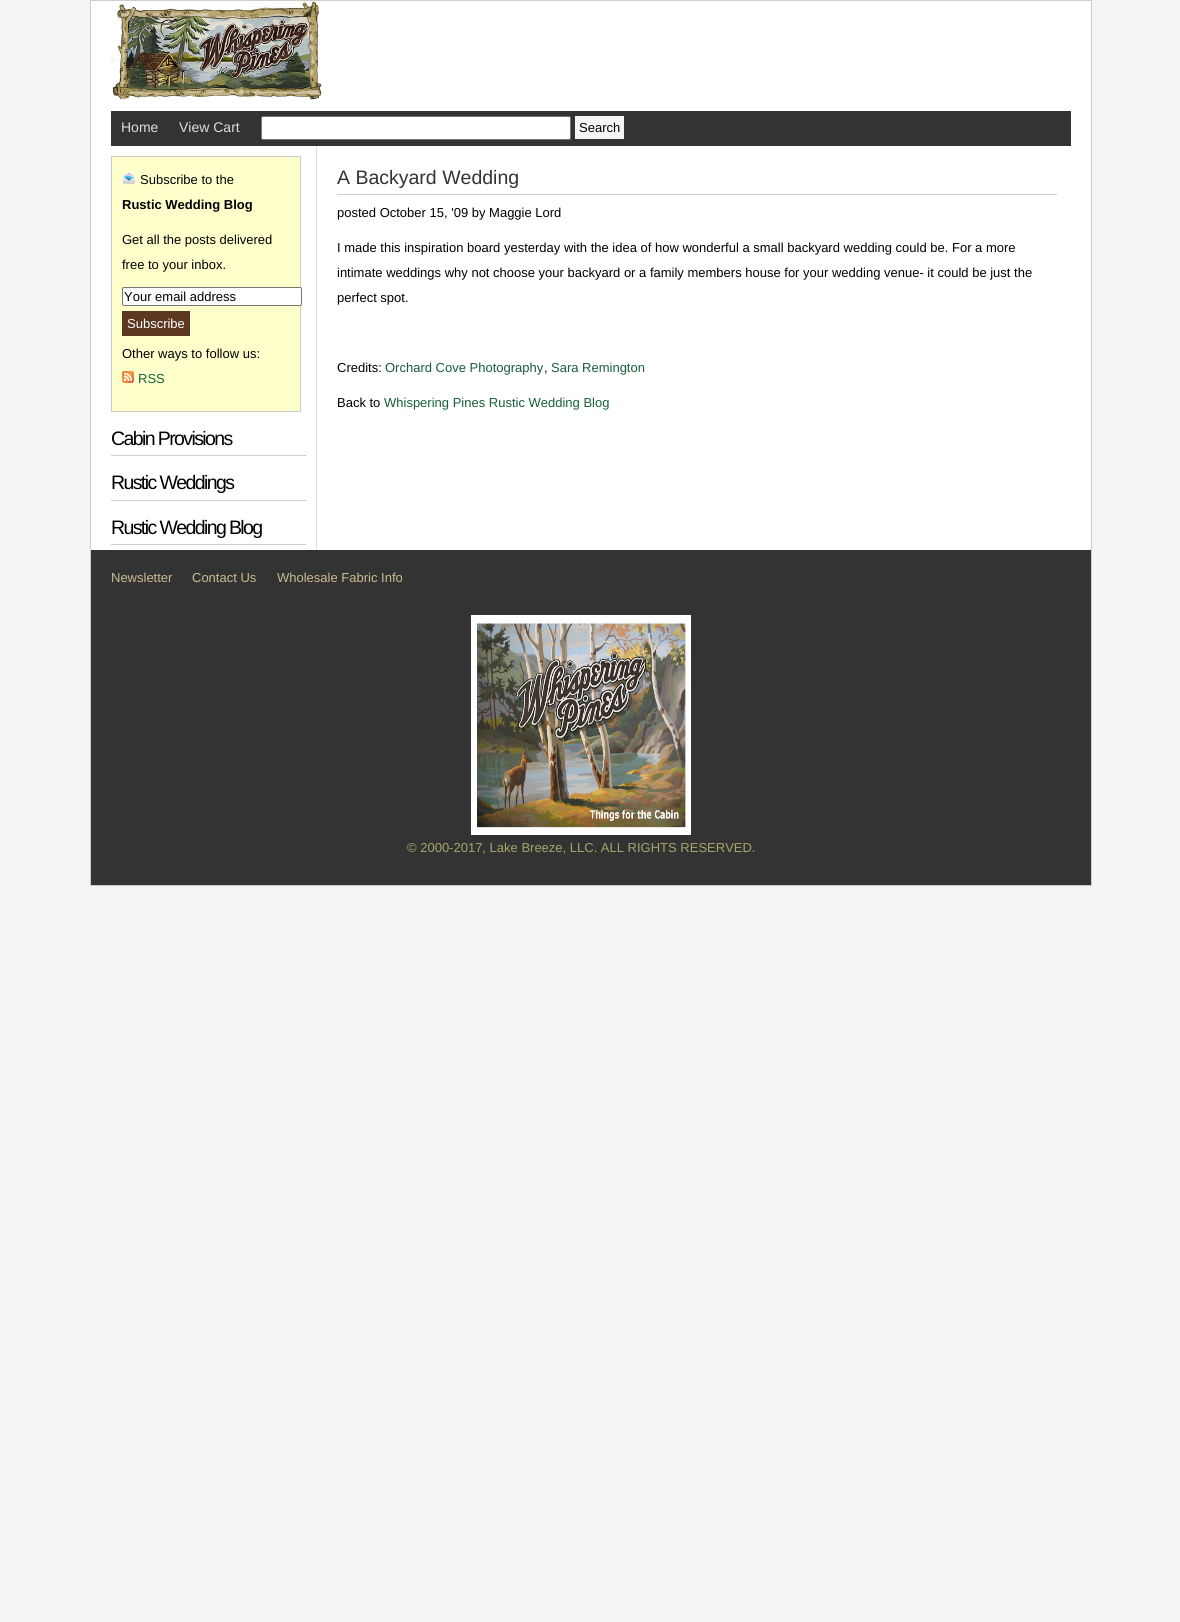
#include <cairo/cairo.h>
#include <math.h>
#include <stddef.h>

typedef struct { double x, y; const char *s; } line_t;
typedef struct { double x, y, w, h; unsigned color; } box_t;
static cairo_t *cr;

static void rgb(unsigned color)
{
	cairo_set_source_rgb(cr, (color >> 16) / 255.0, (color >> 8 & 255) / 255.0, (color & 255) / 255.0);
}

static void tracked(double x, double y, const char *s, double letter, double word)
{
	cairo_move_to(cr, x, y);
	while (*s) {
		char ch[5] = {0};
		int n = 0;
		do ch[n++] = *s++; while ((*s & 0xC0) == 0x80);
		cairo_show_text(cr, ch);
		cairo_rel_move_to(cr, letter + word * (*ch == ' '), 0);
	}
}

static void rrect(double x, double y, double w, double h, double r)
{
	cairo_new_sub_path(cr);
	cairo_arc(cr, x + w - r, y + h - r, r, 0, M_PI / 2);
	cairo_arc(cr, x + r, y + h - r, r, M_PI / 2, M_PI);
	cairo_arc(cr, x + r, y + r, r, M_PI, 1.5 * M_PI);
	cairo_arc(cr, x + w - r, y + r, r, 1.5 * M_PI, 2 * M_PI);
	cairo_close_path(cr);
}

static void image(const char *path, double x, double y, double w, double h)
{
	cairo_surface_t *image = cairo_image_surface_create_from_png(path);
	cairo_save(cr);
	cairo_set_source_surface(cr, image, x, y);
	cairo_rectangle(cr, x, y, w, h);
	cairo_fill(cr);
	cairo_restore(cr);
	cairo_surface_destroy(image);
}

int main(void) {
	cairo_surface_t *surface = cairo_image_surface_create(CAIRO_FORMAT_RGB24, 1180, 1622);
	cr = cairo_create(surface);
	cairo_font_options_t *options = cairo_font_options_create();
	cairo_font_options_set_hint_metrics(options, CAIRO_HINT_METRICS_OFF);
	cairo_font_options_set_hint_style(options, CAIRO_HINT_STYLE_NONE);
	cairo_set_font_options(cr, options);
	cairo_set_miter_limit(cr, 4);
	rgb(0xf5f5f5);
	cairo_paint(cr);
	cairo_rectangle(cr, 90.5, 0.5, 1001, 885);
	rgb(0xcccccc);
	cairo_set_line_width(cr, 1);
	cairo_stroke(cr);
	rgb(0xffffff);
	cairo_rectangle(cr, 91, 1, 1000, 549);
	cairo_fill(cr);
	image("img/1.png", 111, 1, 211, 99);
	rgb(0x333333);
	cairo_rectangle(cr, 111, 111, 960, 35);
	cairo_fill(cr);
	rgb(0xffffff);
	rrect(261.5, 116.5, 309, 23, 1.5);
	cairo_fill_preserve(cr);
	rgb(0x767676);
	cairo_stroke(cr);
	rgb(0xf5f5f5);
	cairo_rectangle(cr, 575, 116, 49, 23);
	cairo_fill(cr);
	rgb(0xdddddd);
	cairo_rectangle(cr, 316, 146, 1, 404);
	cairo_fill(cr);
	rgb(0xffffcc);
	cairo_rectangle(cr, 111.5, 156.5, 189, 255);
	cairo_fill_preserve(cr);
	rgb(0xcccccc);
	cairo_stroke(cr);
	image("img/2.png", 122, 172, 14, 12);
	rgb(0xffffff);
	rrect(122.5, 287.5, 179, 18, 1.5);
	cairo_fill_preserve(cr);
	rgb(0x767676);
	cairo_stroke(cr);
	rgb(0x5c3821);
	cairo_rectangle(cr, 122, 311, 68, 25);
	cairo_fill(cr);
	image("img/3.png", 122, 371, 12, 12);
	{
		static const box_t items[] = {
			{111, 455, 195, 1, 0xcccccc},
			{111, 500, 195, 1, 0xcccccc},
			{111, 544, 195, 1, 0xcccccc},
			{337, 194, 720, 1, 0xcccccc},
			{91, 550, 1000, 335, 0x333333},
		};
		for (size_t i = 0; i < sizeof items / sizeof *items; i++) {
			rgb(items[i].color);
			cairo_rectangle(cr, items[i].x, items[i].y, items[i].w, items[i].h);
			cairo_fill(cr);
		}
	}
	image("img/4.png", 471, 615, 220, 220);
	cairo_select_font_face(cr, "Liberation Sans", CAIRO_FONT_SLANT_NORMAL, CAIRO_FONT_WEIGHT_NORMAL);
	cairo_set_font_size(cr, 14);
	rgb(0xdddddd);
	cairo_move_to(cr, 121, 132);
	cairo_show_text(cr, "Home");
	cairo_move_to(cr, 179, 132);
	cairo_show_text(cr, "View Cart");
	cairo_set_font_size(cr, 13);
	rgb(0x000000);
	cairo_move_to(cr, 579, 132);
	cairo_show_text(cr, "Search");
	cairo_move_to(cr, 140, 184);
	cairo_show_text(cr, "Subscribe to the");
	cairo_select_font_face(cr, "Liberation Sans", CAIRO_FONT_SLANT_NORMAL, CAIRO_FONT_WEIGHT_BOLD);
	cairo_move_to(cr, 122, 209);
	cairo_show_text(cr, "Rustic Wedding Blog");
	cairo_select_font_face(cr, "Liberation Sans", CAIRO_FONT_SLANT_NORMAL, CAIRO_FONT_WEIGHT_NORMAL);
	{
		static const line_t items[] = {
			{122, 244, "Get all the posts delivered"},
			{122, 269, "free to your inbox."},
			{124, 301, "Your email address"},
		};
		for (size_t i = 0; i < sizeof items / sizeof *items; i++) {
			cairo_move_to(cr, items[i].x, items[i].y);
			cairo_show_text(cr, items[i].s);
		}
	}
	rgb(0xffffff);
	cairo_move_to(cr, 127, 328);
	cairo_show_text(cr, "Subscribe");
	rgb(0x000000);
	cairo_move_to(cr, 122, 358);
	cairo_show_text(cr, "Other ways to follow us:");
	rgb(0x155f3a);
	cairo_move_to(cr, 138, 383);
	cairo_show_text(cr, "RSS");
	cairo_set_font_size(cr, 19.5);
	rgb(0x000000);
	{
		static const line_t items[] = {
			{111, 445, "Cabin Provisions"},
			{111, 489, "Rustic Weddings"},
			{111, 534, "Rustic Wedding Blog"},
		};
		for (size_t i = 0; i < sizeof items / sizeof *items; i++) {
			tracked(items[i].x, items[i].y, items[i].s, -1.6, 0);
		}
	}
	rgb(0x333333);
	cairo_move_to(cr, 337, 184);
	cairo_show_text(cr, "A Backyard Wedding");
	cairo_set_font_size(cr, 13);
	rgb(0x000000);
	{
		static const line_t items[] = {
			{337, 217, "posted October 15, '09 by Maggie Lord"},
			{337, 252, "I made this inspiration board yesterday with the idea of how wonderful a small backyard wedding could be. For a more"},
			{337, 277, "intimate weddings why not choose your backyard or a family members house for your wedding venue- it could be just the"},
			{337, 302, "perfect spot."},
			{337, 372, "Credits:"},
		};
		for (size_t i = 0; i < sizeof items / sizeof *items; i++) {
			cairo_move_to(cr, items[i].x, items[i].y);
			cairo_show_text(cr, items[i].s);
		}
	}
	rgb(0x155f3a);
	cairo_move_to(cr, 385, 372);
	cairo_show_text(cr, "Orchard Cove Photography");
	rgb(0x000000);
	cairo_move_to(cr, 544, 372);
	cairo_show_text(cr, ",");
	rgb(0x155f3a);
	cairo_move_to(cr, 551, 372);
	cairo_show_text(cr, "Sara Remington");
	rgb(0x000000);
	cairo_move_to(cr, 337, 407);
	cairo_show_text(cr, "Back to");
	rgb(0x155f3a);
	cairo_move_to(cr, 384, 407);
	cairo_show_text(cr, "Whispering Pines Rustic Wedding Blog");
	rgb(0xcbbc90);
	{
		static const line_t items[] = {
			{111, 582, "Newsletter"},
			{192, 582, "Contact Us"},
			{277, 582, "Wholesale Fabric Info"},
		};
		for (size_t i = 0; i < sizeof items / sizeof *items; i++) {
			cairo_move_to(cr, items[i].x, items[i].y);
			cairo_show_text(cr, items[i].s);
		}
	}
	rgb(0xa7a36b);
	cairo_move_to(cr, 407, 852);
	cairo_show_text(cr, "© 2000-2017, Lake Breeze, LLC. ALL RIGHTS RESERVED.");
	cairo_surface_write_to_png(surface, "page.png");
	cairo_font_options_destroy(options);
	cairo_destroy(cr);
	cairo_surface_destroy(surface);
	return 0;
}
